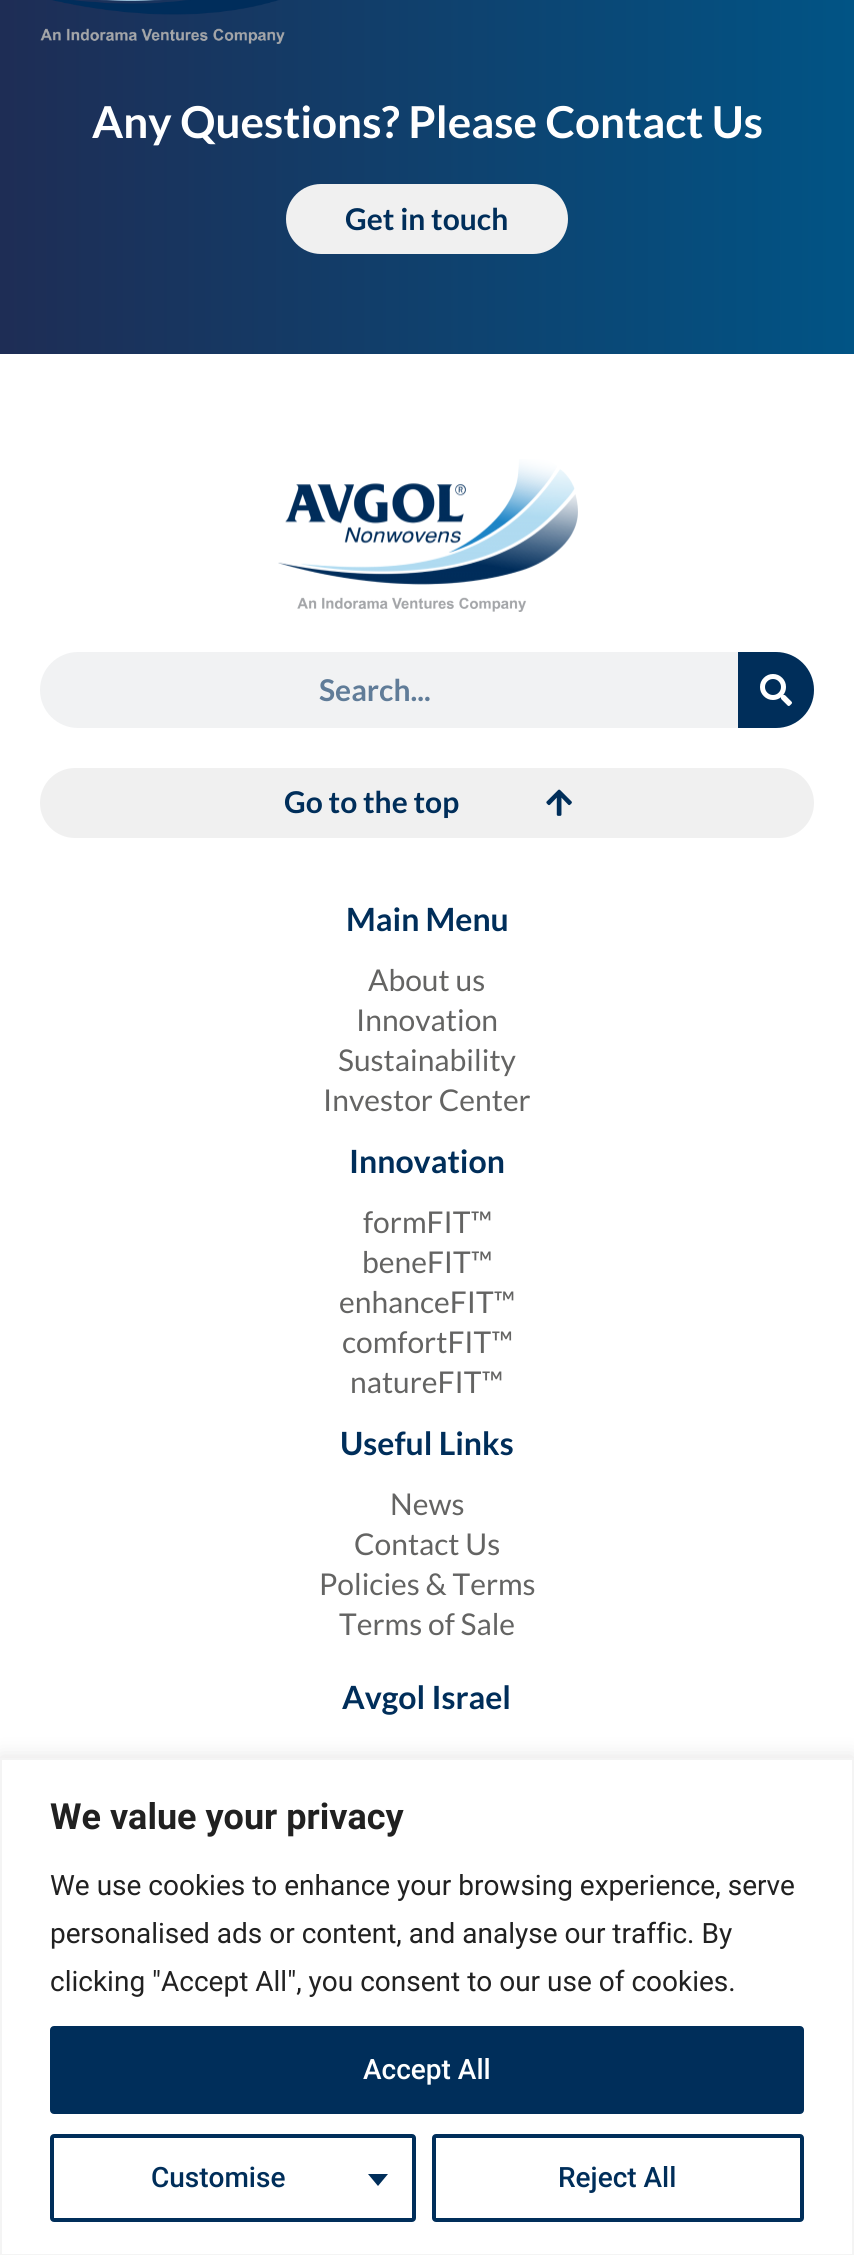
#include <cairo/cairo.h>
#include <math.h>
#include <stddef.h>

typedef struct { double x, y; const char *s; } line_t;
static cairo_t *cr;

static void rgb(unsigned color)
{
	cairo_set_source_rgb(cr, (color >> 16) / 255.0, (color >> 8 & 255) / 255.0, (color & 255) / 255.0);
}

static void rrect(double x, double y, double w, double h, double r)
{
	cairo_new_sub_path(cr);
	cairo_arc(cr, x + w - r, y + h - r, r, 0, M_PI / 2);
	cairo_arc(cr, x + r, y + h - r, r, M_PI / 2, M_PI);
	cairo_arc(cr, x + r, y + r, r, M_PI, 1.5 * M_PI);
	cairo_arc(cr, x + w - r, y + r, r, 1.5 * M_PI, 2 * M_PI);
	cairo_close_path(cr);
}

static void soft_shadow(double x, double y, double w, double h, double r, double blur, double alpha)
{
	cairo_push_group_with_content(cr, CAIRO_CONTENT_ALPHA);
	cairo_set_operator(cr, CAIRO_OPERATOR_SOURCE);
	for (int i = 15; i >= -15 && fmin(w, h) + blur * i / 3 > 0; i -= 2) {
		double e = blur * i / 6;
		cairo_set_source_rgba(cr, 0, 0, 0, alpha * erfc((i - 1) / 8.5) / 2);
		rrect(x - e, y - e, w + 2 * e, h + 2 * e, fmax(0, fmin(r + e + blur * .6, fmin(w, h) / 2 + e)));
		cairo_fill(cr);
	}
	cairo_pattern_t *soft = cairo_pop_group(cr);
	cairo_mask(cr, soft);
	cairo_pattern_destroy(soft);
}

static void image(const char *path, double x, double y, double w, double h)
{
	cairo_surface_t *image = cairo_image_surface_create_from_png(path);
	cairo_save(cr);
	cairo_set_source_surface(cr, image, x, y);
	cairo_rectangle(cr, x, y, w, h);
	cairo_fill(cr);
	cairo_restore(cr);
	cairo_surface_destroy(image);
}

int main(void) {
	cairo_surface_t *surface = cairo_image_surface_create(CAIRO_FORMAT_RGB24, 854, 2255);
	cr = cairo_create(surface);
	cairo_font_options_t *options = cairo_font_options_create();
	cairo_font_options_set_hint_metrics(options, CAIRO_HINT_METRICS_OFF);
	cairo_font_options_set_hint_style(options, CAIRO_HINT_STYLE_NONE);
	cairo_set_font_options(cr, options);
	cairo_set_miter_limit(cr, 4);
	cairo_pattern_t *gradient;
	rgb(0xffffff);
	cairo_paint(cr);
	gradient = cairo_pattern_create_linear(0, 177, 854, 177);
	cairo_pattern_add_color_stop_rgba(gradient, 0, 0.118, 0.176, 0.333, 1);
	cairo_pattern_add_color_stop_rgba(gradient, 1, 0.004, 0.329, 0.522, 1);
	cairo_set_source(cr, gradient);
	cairo_pattern_destroy(gradient);
	cairo_rectangle(cr, 0, 0, 854, 354);
	cairo_fill(cr);
	image("img/1.png", 40, 0, 245, 44);
	rgb(0xf0f0f0);
	rrect(286, 184, 282, 70, 35);
	cairo_fill(cr);
	image("img/2.png", 278, 459, 300, 153);
	rgb(0xf1f2f3);
	rrect(40, 652, 774, 76, 38);
	cairo_fill(cr);
	rgb(0x002e5a);
	cairo_new_path(cr);
	cairo_move_to(cr, 738, 652);
	cairo_line_to(cr, 776, 652);
	cairo_curve_to(cr, 797, 652, 814, 669, 814, 690);
	cairo_curve_to(cr, 814, 711, 797, 728, 776, 728);
	cairo_line_to(cr, 738, 728);
	cairo_close_path(cr);
	cairo_fill(cr);
	image("img/3.png", 760, 674, 32, 32);
	rgb(0xf0f0f0);
	rrect(40, 768, 774, 70, 35);
	cairo_fill(cr);
	image("img/4.png", 546, 789, 26, 27);
	rgb(0xacabab);
	soft_shadow(0, 1756, 854, 498, 0, 10, 0.3);
	rgb(0xffffff);
	cairo_rectangle(cr, 1, 1759, 852, 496);
	cairo_fill_preserve(cr);
	rgb(0xf4f4f4);
	cairo_stroke(cr);
	rgb(0x002e5a);
	rrect(52, 2028, 750, 84, 2);
	cairo_fill_preserve(cr);
	cairo_set_line_width(cr, 4);
	cairo_stroke(cr);
	rrect(52, 2136, 362, 84, 2);
	cairo_stroke(cr);
	cairo_new_path(cr);
	cairo_move_to(cr, 368, 2174);
	cairo_line_to(cr, 388, 2174);
	cairo_line_to(cr, 378, 2186);
	cairo_close_path(cr);
	cairo_fill(cr);
	rrect(434, 2136, 368, 84, 2);
	cairo_stroke(cr);
	cairo_select_font_face(cr, "Lato", CAIRO_FONT_SLANT_NORMAL, CAIRO_FONT_WEIGHT_BOLD);
	cairo_set_font_size(cr, 44);
	rgb(0xffffff);
	cairo_move_to(cr, 92, 138);
	cairo_show_text(cr, "Any Questions? Please Contact Us");
	cairo_set_font_size(cr, 30);
	rgb(0x002e5a);
	cairo_move_to(cr, 345, 230);
	cairo_show_text(cr, "Get in touch");
	rgb(0x607c98);
	cairo_move_to(cr, 319, 701);
	cairo_show_text(cr, "Search...");
	rgb(0x002e5a);
	cairo_move_to(cr, 284, 813);
	cairo_show_text(cr, "Go to the top");
	cairo_set_font_size(cr, 32);
	cairo_move_to(cr, 346, 931);
	cairo_show_text(cr, "Main Menu");
	cairo_select_font_face(cr, "Lato", CAIRO_FONT_SLANT_NORMAL, CAIRO_FONT_WEIGHT_NORMAL);
	cairo_set_font_size(cr, 30);
	rgb(0x646463);
	{
		static const line_t items[] = {
			{368, 991, "About us"},
			{356, 1031, "Innovation"},
			{338, 1071, "Sustainability"},
			{323, 1111, "Investor Center"},
		};
		for (size_t i = 0; i < sizeof items / sizeof *items; i++) {
			cairo_move_to(cr, items[i].x, items[i].y);
			cairo_show_text(cr, items[i].s);
		}
	}
	cairo_select_font_face(cr, "Lato", CAIRO_FONT_SLANT_NORMAL, CAIRO_FONT_WEIGHT_BOLD);
	cairo_set_font_size(cr, 32);
	rgb(0x002e5a);
	cairo_move_to(cr, 349, 1173);
	cairo_show_text(cr, "Innovation");
	cairo_select_font_face(cr, "Lato", CAIRO_FONT_SLANT_NORMAL, CAIRO_FONT_WEIGHT_NORMAL);
	cairo_set_font_size(cr, 30);
	rgb(0x646463);
	{
		static const line_t items[] = {
			{363, 1233, "formFIT™"},
			{362, 1273, "beneFIT™"},
			{339, 1313, "enhanceFIT™"},
			{342, 1353, "comfortFIT™"},
			{350, 1393, "natureFIT™"},
		};
		for (size_t i = 0; i < sizeof items / sizeof *items; i++) {
			cairo_move_to(cr, items[i].x, items[i].y);
			cairo_show_text(cr, items[i].s);
		}
	}
	cairo_select_font_face(cr, "Lato", CAIRO_FONT_SLANT_NORMAL, CAIRO_FONT_WEIGHT_BOLD);
	cairo_set_font_size(cr, 32);
	rgb(0x002e5a);
	cairo_move_to(cr, 340, 1455);
	cairo_show_text(cr, "Useful Links");
	cairo_select_font_face(cr, "Lato", CAIRO_FONT_SLANT_NORMAL, CAIRO_FONT_WEIGHT_NORMAL);
	cairo_set_font_size(cr, 30);
	rgb(0x646463);
	{
		static const line_t items[] = {
			{390, 1515, "News"},
			{354, 1555, "Contact Us"},
			{319, 1595, "Policies & Terms"},
			{339, 1635, "Terms of Sale"},
		};
		for (size_t i = 0; i < sizeof items / sizeof *items; i++) {
			cairo_move_to(cr, items[i].x, items[i].y);
			cairo_show_text(cr, items[i].s);
		}
	}
	cairo_select_font_face(cr, "Lato", CAIRO_FONT_SLANT_NORMAL, CAIRO_FONT_WEIGHT_BOLD);
	cairo_set_font_size(cr, 32);
	rgb(0x002e5a);
	cairo_move_to(cr, 342, 1709);
	cairo_show_text(cr, "Avgol Israel");
	cairo_select_font_face(cr, "Roboto", CAIRO_FONT_SLANT_NORMAL, CAIRO_FONT_WEIGHT_BOLD);
	cairo_set_font_size(cr, 36);
	rgb(0x212121);
	cairo_move_to(cr, 50, 1829);
	cairo_show_text(cr, "We value your privacy");
	cairo_select_font_face(cr, "Roboto", CAIRO_FONT_SLANT_NORMAL, CAIRO_FONT_WEIGHT_NORMAL);
	cairo_set_font_size(cr, 28);
	{
		static const line_t items[] = {
			{50, 1895, "We use cookies to enhance your browsing experience, serve"},
			{50, 1943, "personalised ads or content, and analyse our traffic. By"},
			{50, 1991, "clicking \"Accept All\", you consent to our use of cookies."},
		};
		for (size_t i = 0; i < sizeof items / sizeof *items; i++) {
			cairo_move_to(cr, items[i].x, items[i].y);
			cairo_show_text(cr, items[i].s);
		}
	}
	cairo_select_font_face(cr, "Roboto Medium", CAIRO_FONT_SLANT_NORMAL, CAIRO_FONT_WEIGHT_NORMAL);
	rgb(0xffffff);
	cairo_move_to(cr, 363, 2079);
	cairo_show_text(cr, "Accept All");
	rgb(0x002e5a);
	cairo_move_to(cr, 151, 2187);
	cairo_show_text(cr, "Customise");
	cairo_move_to(cr, 558, 2187);
	cairo_show_text(cr, "Reject All");
	cairo_surface_write_to_png(surface, "page.png");
	cairo_font_options_destroy(options);
	cairo_destroy(cr);
	cairo_surface_destroy(surface);
	return 0;
}
